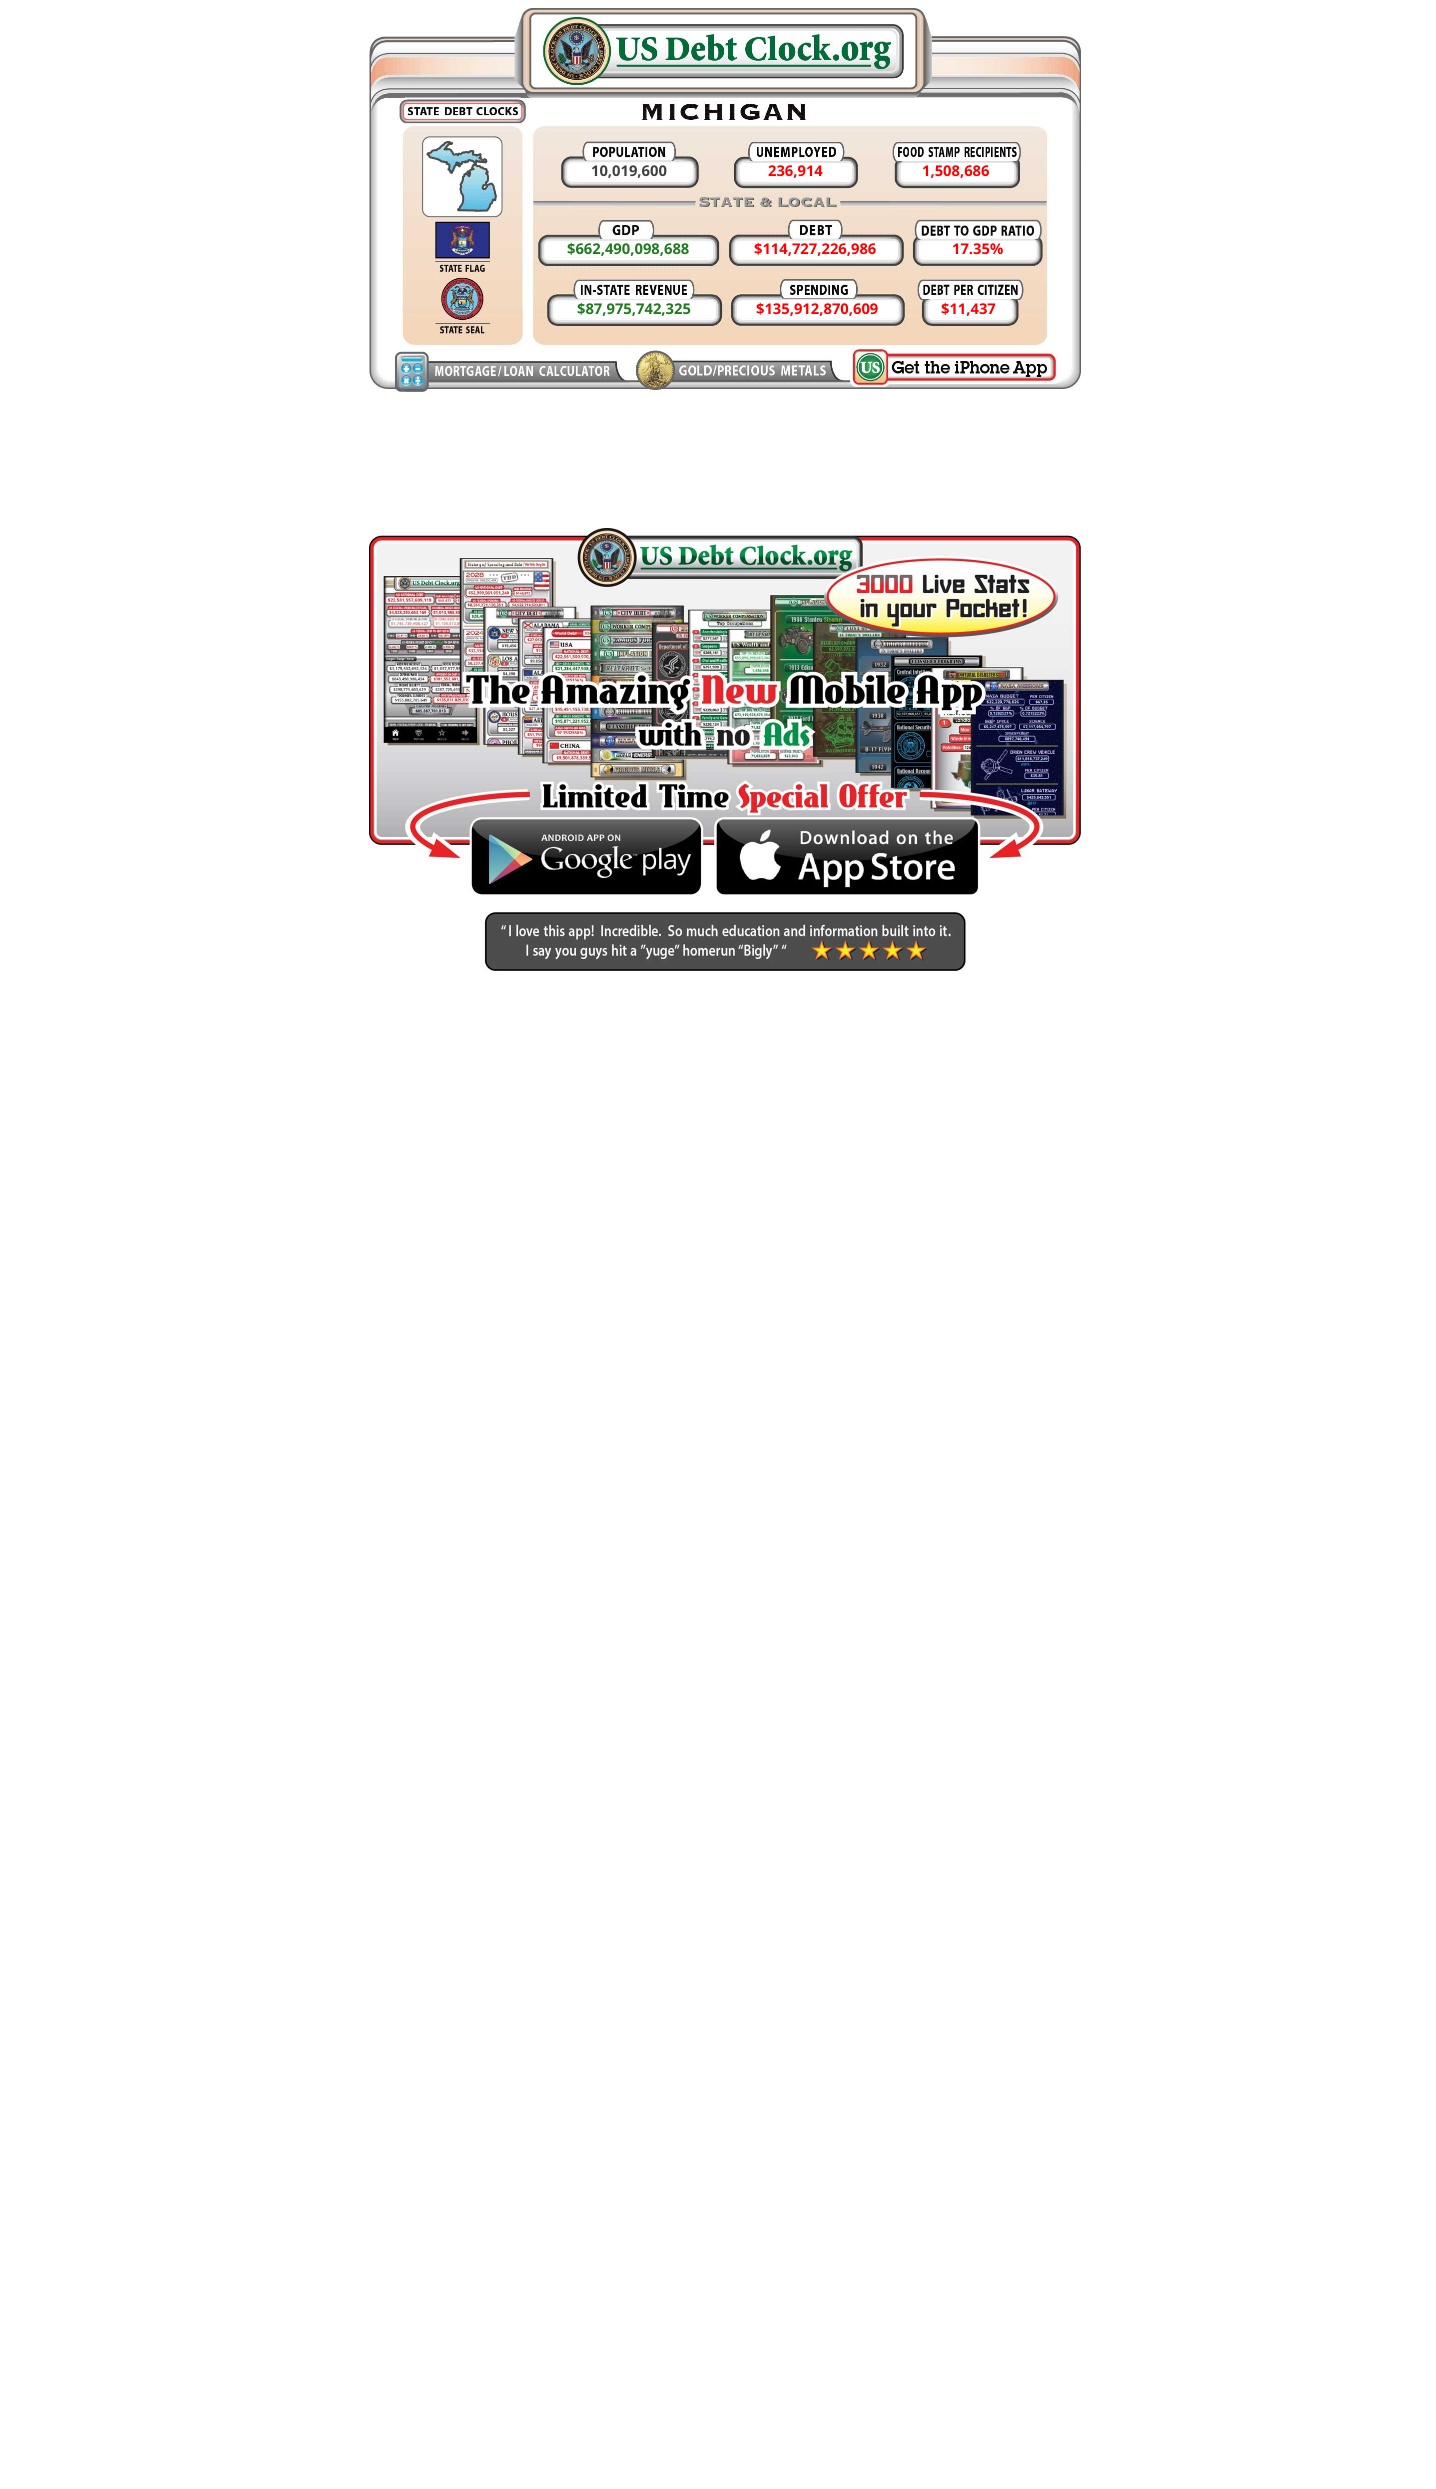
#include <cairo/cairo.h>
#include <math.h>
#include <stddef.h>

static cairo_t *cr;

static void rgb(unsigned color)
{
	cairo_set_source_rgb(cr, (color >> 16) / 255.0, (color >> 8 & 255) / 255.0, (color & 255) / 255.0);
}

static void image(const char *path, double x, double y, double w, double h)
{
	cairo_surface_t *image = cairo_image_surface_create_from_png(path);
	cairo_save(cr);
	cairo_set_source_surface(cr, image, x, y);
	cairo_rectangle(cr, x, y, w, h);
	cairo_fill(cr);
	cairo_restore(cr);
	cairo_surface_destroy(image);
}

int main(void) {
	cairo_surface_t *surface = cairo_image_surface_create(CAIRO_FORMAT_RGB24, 1436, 2489);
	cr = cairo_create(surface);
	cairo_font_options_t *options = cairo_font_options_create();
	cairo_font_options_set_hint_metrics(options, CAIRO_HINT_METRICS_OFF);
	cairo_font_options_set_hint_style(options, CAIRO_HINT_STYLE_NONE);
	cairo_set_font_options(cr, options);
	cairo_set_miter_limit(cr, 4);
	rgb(0xffffff);
	cairo_paint(cr);
	image("img/1.png", 369, 8, 712, 385);
	image("img/2.png", 369, 528, 712, 443);
	cairo_select_font_face(cr, "Open Sans", CAIRO_FONT_SLANT_NORMAL, CAIRO_FONT_WEIGHT_BOLD);
	cairo_set_font_size(cr, 14.75);
	rgb(0x404040);
	cairo_move_to(cr, 591, 176);
	cairo_show_text(cr, "10,019,600");
	rgb(0xff0000);
	cairo_move_to(cr, 768, 176);
	cairo_show_text(cr, "236,914");
	cairo_move_to(cr, 922, 176);
	cairo_show_text(cr, "1,508,686");
	rgb(0x1e7b1e);
	cairo_move_to(cr, 567, 254);
	cairo_show_text(cr, "$662,490,098,688");
	rgb(0xff0000);
	cairo_move_to(cr, 754, 254);
	cairo_show_text(cr, "$114,727,226,986");
	cairo_move_to(cr, 952, 254);
	cairo_show_text(cr, "17.35%");
	rgb(0x1e7b1e);
	cairo_move_to(cr, 577, 314);
	cairo_show_text(cr, "$87,975,742,325");
	rgb(0xff0000);
	cairo_move_to(cr, 756, 314);
	cairo_show_text(cr, "$135,912,870,609");
	cairo_move_to(cr, 941, 314);
	cairo_show_text(cr, "$11,437");
	cairo_surface_write_to_png(surface, "page.png");
	cairo_font_options_destroy(options);
	cairo_destroy(cr);
	cairo_surface_destroy(surface);
	return 0;
}
